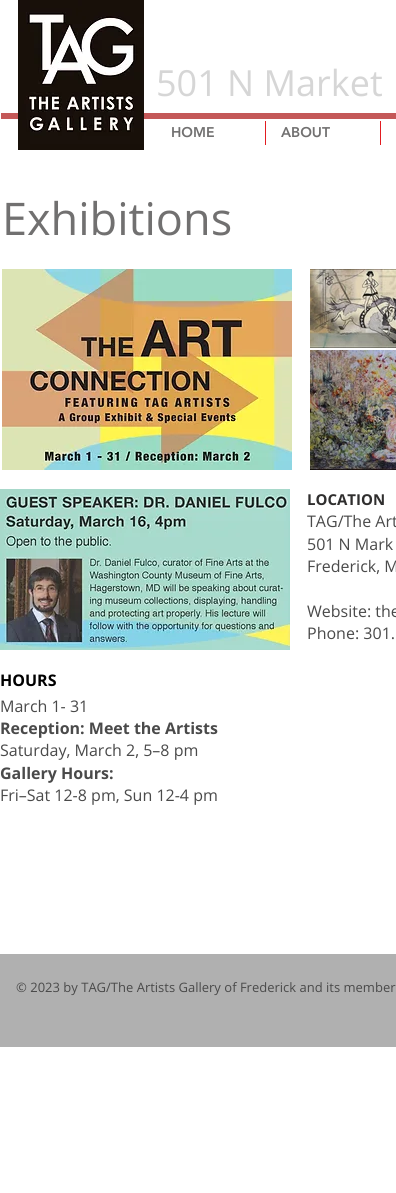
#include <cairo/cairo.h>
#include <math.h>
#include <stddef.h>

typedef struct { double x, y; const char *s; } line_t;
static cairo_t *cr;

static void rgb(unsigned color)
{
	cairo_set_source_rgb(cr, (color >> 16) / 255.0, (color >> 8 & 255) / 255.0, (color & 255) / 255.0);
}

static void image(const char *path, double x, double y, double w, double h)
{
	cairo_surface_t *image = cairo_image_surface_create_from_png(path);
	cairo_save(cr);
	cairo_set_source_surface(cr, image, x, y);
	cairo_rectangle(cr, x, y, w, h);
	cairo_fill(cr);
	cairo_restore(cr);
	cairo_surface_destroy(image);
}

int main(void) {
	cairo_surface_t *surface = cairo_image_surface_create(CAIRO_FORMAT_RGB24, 396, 1193);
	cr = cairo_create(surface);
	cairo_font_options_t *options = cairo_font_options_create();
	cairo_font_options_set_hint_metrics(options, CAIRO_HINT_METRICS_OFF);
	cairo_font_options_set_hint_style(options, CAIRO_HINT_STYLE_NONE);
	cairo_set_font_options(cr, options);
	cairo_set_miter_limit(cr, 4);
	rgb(0xffffff);
	cairo_paint(cr);
	rgb(0xc45858);
	cairo_rectangle(cr, 1, 113, 395, 6);
	cairo_fill(cr);
	image("img/1.png", 18, 0, 126, 150);
	rgb(0xe21c21);
	cairo_rectangle(cr, 265, 121, 1, 24);
	cairo_fill(cr);
	cairo_rectangle(cr, 380, 121, 1, 24);
	cairo_fill(cr);
	image("img/2.png", 2, 269, 290, 201);
	image("img/3.png", 310, 269, 86, 79);
	image("img/4.png", 310, 350, 86, 120);
	image("img/5.png", 0, 489, 290, 161);
	rgb(0xb0b0b0);
	cairo_rectangle(cr, 0, 954, 396, 93);
	cairo_fill(cr);
	cairo_select_font_face(cr, "Open Sans", CAIRO_FONT_SLANT_NORMAL, CAIRO_FONT_WEIGHT_NORMAL);
	cairo_set_font_size(cr, 36);
	rgb(0xd6d6d6);
	cairo_move_to(cr, 156, 96);
	cairo_show_text(cr, "501 N Market");
	cairo_select_font_face(cr, "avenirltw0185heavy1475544 Black", CAIRO_FONT_SLANT_NORMAL, CAIRO_FONT_WEIGHT_NORMAL);
	cairo_set_font_size(cr, 14);
	rgb(0x717070);
	cairo_move_to(cr, 171, 137);
	cairo_show_text(cr, "HOME");
	cairo_move_to(cr, 281, 137);
	cairo_show_text(cr, "ABOUT");
	cairo_select_font_face(cr, "Open Sans", CAIRO_FONT_SLANT_NORMAL, CAIRO_FONT_WEIGHT_NORMAL);
	cairo_set_font_size(cr, 45);
	cairo_move_to(cr, 2, 235);
	cairo_show_text(cr, "Exhibitions");
	cairo_select_font_face(cr, "Open Sans", CAIRO_FONT_SLANT_NORMAL, CAIRO_FONT_WEIGHT_BOLD);
	cairo_set_font_size(cr, 15);
	rgb(0x2f2e2e);
	cairo_move_to(cr, 307, 505);
	cairo_show_text(cr, "LOCATION");
	cairo_select_font_face(cr, "Open Sans", CAIRO_FONT_SLANT_NORMAL, CAIRO_FONT_WEIGHT_NORMAL);
	cairo_set_font_size(cr, 16);
	rgb(0x4a4a4a);
	{
		static const line_t items[] = {
			{307, 527, "TAG/The Art"},
			{307, 550, "501 N Mark"},
			{307, 572, "Frederick, M"},
			{307, 617, "Website: the"},
			{307, 639, "Phone: 301."},
		};
		for (size_t i = 0; i < sizeof items / sizeof *items; i++) {
			cairo_move_to(cr, items[i].x, items[i].y);
			cairo_show_text(cr, items[i].s);
		}
	}
	cairo_select_font_face(cr, "Open Sans", CAIRO_FONT_SLANT_NORMAL, CAIRO_FONT_WEIGHT_BOLD);
	rgb(0x000000);
	cairo_move_to(cr, 0, 686);
	cairo_show_text(cr, "HOURS");
	cairo_select_font_face(cr, "Open Sans", CAIRO_FONT_SLANT_NORMAL, CAIRO_FONT_WEIGHT_NORMAL);
	rgb(0x4a4a4a);
	cairo_move_to(cr, 0, 712);
	cairo_show_text(cr, "March 1- 31");
	cairo_select_font_face(cr, "Open Sans", CAIRO_FONT_SLANT_NORMAL, CAIRO_FONT_WEIGHT_BOLD);
	cairo_move_to(cr, 0, 734);
	cairo_show_text(cr, "Reception: Meet the Artists");
	cairo_select_font_face(cr, "Open Sans", CAIRO_FONT_SLANT_NORMAL, CAIRO_FONT_WEIGHT_NORMAL);
	cairo_move_to(cr, 0, 756);
	cairo_show_text(cr, "Saturday, March 2, 5–8 pm");
	cairo_select_font_face(cr, "Open Sans", CAIRO_FONT_SLANT_NORMAL, CAIRO_FONT_WEIGHT_BOLD);
	cairo_move_to(cr, 0, 779);
	cairo_show_text(cr, "Gallery Hours:");
	cairo_select_font_face(cr, "Open Sans", CAIRO_FONT_SLANT_NORMAL, CAIRO_FONT_WEIGHT_NORMAL);
	cairo_move_to(cr, 0, 801);
	cairo_show_text(cr, "Fri–Sat 12-8 pm, Sun 12-4 pm");
	cairo_set_font_size(cr, 13);
	cairo_move_to(cr, 16, 992);
	cairo_show_text(cr, "© 2023 by TAG/The Artists Gallery of Frederick and its member");
	cairo_surface_write_to_png(surface, "page.png");
	cairo_font_options_destroy(options);
	cairo_destroy(cr);
	cairo_surface_destroy(surface);
	return 0;
}
